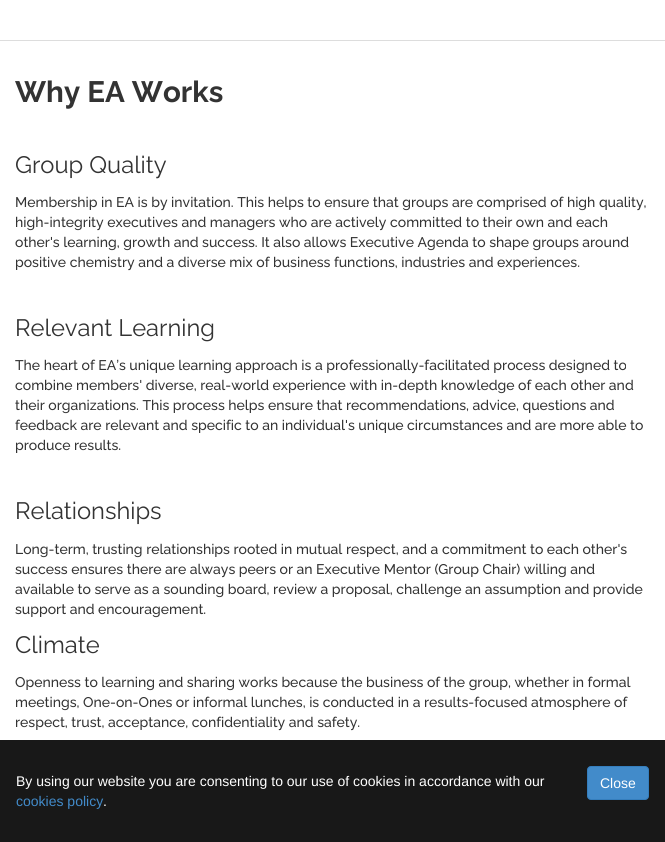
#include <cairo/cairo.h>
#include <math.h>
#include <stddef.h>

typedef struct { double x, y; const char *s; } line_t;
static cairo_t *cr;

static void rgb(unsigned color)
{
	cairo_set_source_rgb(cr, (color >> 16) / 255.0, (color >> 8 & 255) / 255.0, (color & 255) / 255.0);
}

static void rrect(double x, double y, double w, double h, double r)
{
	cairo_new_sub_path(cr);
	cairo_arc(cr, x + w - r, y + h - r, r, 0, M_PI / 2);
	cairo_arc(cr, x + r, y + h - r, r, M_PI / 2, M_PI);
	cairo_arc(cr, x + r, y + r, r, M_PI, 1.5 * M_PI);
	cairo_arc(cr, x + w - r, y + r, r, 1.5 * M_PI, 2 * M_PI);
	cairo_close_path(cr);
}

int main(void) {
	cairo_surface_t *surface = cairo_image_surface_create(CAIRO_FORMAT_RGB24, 665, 842);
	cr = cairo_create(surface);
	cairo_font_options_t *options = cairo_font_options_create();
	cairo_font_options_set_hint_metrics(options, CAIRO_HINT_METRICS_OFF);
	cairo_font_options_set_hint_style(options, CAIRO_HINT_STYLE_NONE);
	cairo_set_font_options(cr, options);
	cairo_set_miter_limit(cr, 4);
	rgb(0xffffff);
	cairo_paint(cr);
	rgb(0xdddddd);
	cairo_rectangle(cr, 0, 40, 665, 1);
	cairo_fill(cr);
	rgb(0x181818);
	cairo_rectangle(cr, 0, 740, 665, 102);
	cairo_fill(cr);
	rgb(0x428bca);
	rrect(587.5, 766.5, 61, 33, 3.5);
	cairo_fill_preserve(cr);
	rgb(0x357ebd);
	cairo_set_line_width(cr, 1);
	cairo_stroke(cr);
	cairo_select_font_face(cr, "Raleway", CAIRO_FONT_SLANT_NORMAL, CAIRO_FONT_WEIGHT_BOLD);
	cairo_set_font_size(cr, 29.5);
	rgb(0x333333);
	cairo_move_to(cr, 15, 102);
	cairo_show_text(cr, "Why EA Works");
	cairo_select_font_face(cr, "Raleway", CAIRO_FONT_SLANT_NORMAL, CAIRO_FONT_WEIGHT_NORMAL);
	cairo_set_font_size(cr, 23.75);
	cairo_move_to(cr, 15, 173);
	cairo_show_text(cr, "Group Quality");
	cairo_select_font_face(cr, "Raleway Medium", CAIRO_FONT_SLANT_NORMAL, CAIRO_FONT_WEIGHT_NORMAL);
	cairo_set_font_size(cr, 14);
	{
		static const line_t items[] = {
			{15, 207, "Membership in EA is by invitation. This helps to ensure that groups are comprised of high quality,"},
			{15, 227, "high-integrity executives and managers who are actively committed to their own and each"},
			{15, 247, "other's learning, growth and success. It also allows Executive Agenda to shape groups around"},
			{15, 267, "positive chemistry and a diverse mix of business functions, industries and experiences."},
		};
		for (size_t i = 0; i < sizeof items / sizeof *items; i++) {
			cairo_move_to(cr, items[i].x, items[i].y);
			cairo_show_text(cr, items[i].s);
		}
	}
	cairo_select_font_face(cr, "Raleway", CAIRO_FONT_SLANT_NORMAL, CAIRO_FONT_WEIGHT_NORMAL);
	cairo_set_font_size(cr, 23.75);
	cairo_move_to(cr, 15, 336);
	cairo_show_text(cr, "Relevant Learning");
	cairo_select_font_face(cr, "Raleway Medium", CAIRO_FONT_SLANT_NORMAL, CAIRO_FONT_WEIGHT_NORMAL);
	cairo_set_font_size(cr, 14);
	{
		static const line_t items[] = {
			{15, 370, "The heart of EA’s unique learning approach is a professionally-facilitated process designed to"},
			{15, 390, "combine members' diverse, real-world experience with in-depth knowledge of each other and"},
			{15, 410, "their organizations. This process helps ensure that recommendations, advice, questions and"},
			{15, 430, "feedback are relevant and specific to an individual's unique circumstances and are more able to"},
			{15, 450, "produce results."},
		};
		for (size_t i = 0; i < sizeof items / sizeof *items; i++) {
			cairo_move_to(cr, items[i].x, items[i].y);
			cairo_show_text(cr, items[i].s);
		}
	}
	cairo_select_font_face(cr, "Raleway", CAIRO_FONT_SLANT_NORMAL, CAIRO_FONT_WEIGHT_NORMAL);
	cairo_set_font_size(cr, 23.75);
	cairo_move_to(cr, 15, 519);
	cairo_show_text(cr, "Relationships");
	cairo_select_font_face(cr, "Raleway Medium", CAIRO_FONT_SLANT_NORMAL, CAIRO_FONT_WEIGHT_NORMAL);
	cairo_set_font_size(cr, 14);
	{
		static const line_t items[] = {
			{15, 554, "Long-term, trusting relationships rooted in mutual respect, and a commitment to each other's"},
			{15, 574, "success ensures there are always peers or an Executive Mentor (Group Chair) willing and"},
			{15, 594, "available to serve as a sounding board, review a proposal, challenge an assumption and provide"},
			{15, 614, "support and encouragement."},
		};
		for (size_t i = 0; i < sizeof items / sizeof *items; i++) {
			cairo_move_to(cr, items[i].x, items[i].y);
			cairo_show_text(cr, items[i].s);
		}
	}
	cairo_select_font_face(cr, "Raleway", CAIRO_FONT_SLANT_NORMAL, CAIRO_FONT_WEIGHT_NORMAL);
	cairo_set_font_size(cr, 23.75);
	cairo_move_to(cr, 15, 653);
	cairo_show_text(cr, "Climate");
	cairo_select_font_face(cr, "Raleway Medium", CAIRO_FONT_SLANT_NORMAL, CAIRO_FONT_WEIGHT_NORMAL);
	cairo_set_font_size(cr, 14);
	{
		static const line_t items[] = {
			{15, 687, "Openness to learning and sharing works because the business of the group, whether in formal"},
			{15, 707, "meetings, One-on-Ones or informal lunches, is conducted in a results-focused atmosphere of"},
			{15, 727, "respect, trust, acceptance, confidentiality and safety."},
		};
		for (size_t i = 0; i < sizeof items / sizeof *items; i++) {
			cairo_move_to(cr, items[i].x, items[i].y);
			cairo_show_text(cr, items[i].s);
		}
	}
	cairo_select_font_face(cr, "Liberation Sans", CAIRO_FONT_SLANT_NORMAL, CAIRO_FONT_WEIGHT_NORMAL);
	rgb(0xffffff);
	cairo_move_to(cr, 16, 786);
	cairo_show_text(cr, "By using our website you are consenting to our use of cookies in accordance with our");
	rgb(0x428bca);
	cairo_move_to(cr, 16, 806);
	cairo_show_text(cr, "cookies policy");
	rgb(0xffffff);
	cairo_move_to(cr, 103, 806);
	cairo_show_text(cr, ".");
	cairo_move_to(cr, 600, 788);
	cairo_show_text(cr, "Close");
	cairo_surface_write_to_png(surface, "page.png");
	cairo_font_options_destroy(options);
	cairo_destroy(cr);
	cairo_surface_destroy(surface);
	return 0;
}
